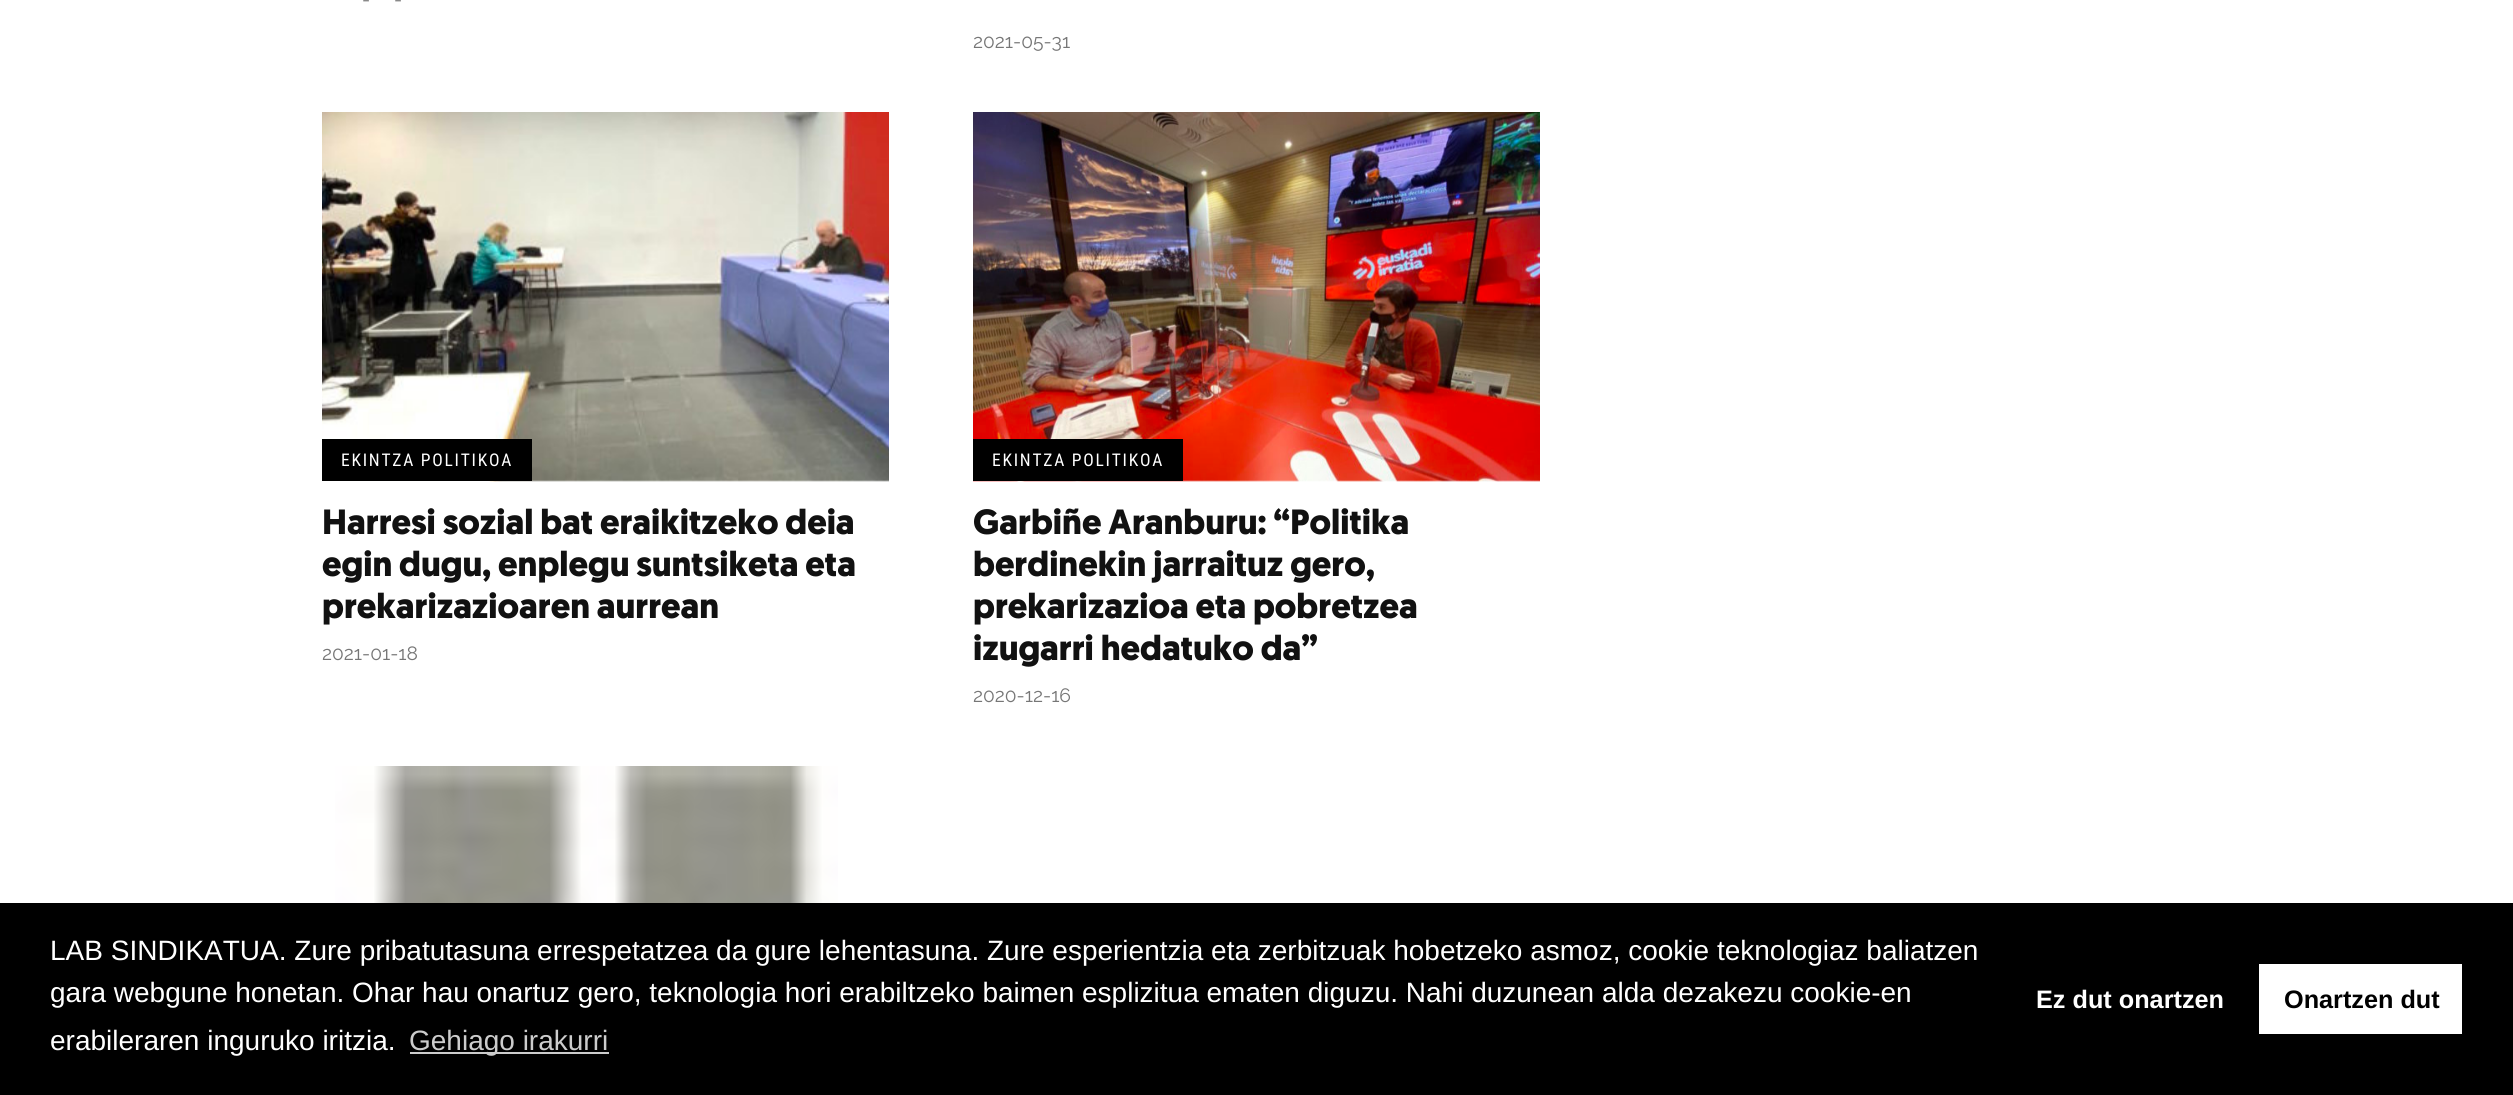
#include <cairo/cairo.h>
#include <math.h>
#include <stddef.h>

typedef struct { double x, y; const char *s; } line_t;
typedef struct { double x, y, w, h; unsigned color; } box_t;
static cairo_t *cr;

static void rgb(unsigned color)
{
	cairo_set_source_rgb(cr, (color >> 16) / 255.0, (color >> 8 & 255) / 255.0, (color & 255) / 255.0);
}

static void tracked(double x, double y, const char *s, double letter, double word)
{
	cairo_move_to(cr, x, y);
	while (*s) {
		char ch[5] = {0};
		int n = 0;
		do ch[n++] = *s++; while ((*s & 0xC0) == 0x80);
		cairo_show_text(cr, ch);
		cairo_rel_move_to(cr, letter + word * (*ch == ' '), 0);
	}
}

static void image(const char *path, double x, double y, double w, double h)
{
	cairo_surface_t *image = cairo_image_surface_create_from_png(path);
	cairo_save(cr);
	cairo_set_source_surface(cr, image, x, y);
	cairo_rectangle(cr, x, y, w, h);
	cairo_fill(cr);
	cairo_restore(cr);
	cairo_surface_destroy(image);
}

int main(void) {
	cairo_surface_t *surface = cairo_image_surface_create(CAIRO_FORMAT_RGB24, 2513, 1095);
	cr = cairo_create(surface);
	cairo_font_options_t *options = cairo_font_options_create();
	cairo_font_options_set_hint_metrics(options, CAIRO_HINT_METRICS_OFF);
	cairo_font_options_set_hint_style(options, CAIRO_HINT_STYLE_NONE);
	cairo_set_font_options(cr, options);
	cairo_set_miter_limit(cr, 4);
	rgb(0xffffff);
	cairo_paint(cr);
	image("img/1.png", 322, 112, 567, 370);
	rgb(0x000000);
	cairo_rectangle(cr, 322, 439, 210, 42);
	cairo_fill(cr);
	image("img/2.png", 973, 112, 567, 370);
	cairo_rectangle(cr, 973, 439, 210, 42);
	cairo_fill(cr);
	image("img/3.png", 335, 766, 503, 137);
	{
		static const box_t items[] = {
			{0, 903, 2513, 192, 0x000000},
			{410, 1052, 199, 2, 0xcccccc},
			{2259, 964, 203, 70, 0xffffff},
		};
		for (size_t i = 0; i < sizeof items / sizeof *items; i++) {
			rgb(items[i].color);
			cairo_rectangle(cr, items[i].x, items[i].y, items[i].w, items[i].h);
			cairo_fill(cr);
		}
	}
	cairo_select_font_face(cr, "Raleway Thin", CAIRO_FONT_SLANT_NORMAL, CAIRO_FONT_WEIGHT_NORMAL);
	cairo_set_font_size(cr, 19.25);
	rgb(0x767676);
	{
		static const line_t items[] = {
			{362, 6, "-"},
			{394, 6, "-"},
			{973, 48, "2021-05-31"},
		};
		for (size_t i = 0; i < sizeof items / sizeof *items; i++) {
			cairo_move_to(cr, items[i].x, items[i].y);
			cairo_show_text(cr, items[i].s);
		}
	}
	cairo_select_font_face(cr, "Roboto Condensed", CAIRO_FONT_SLANT_NORMAL, CAIRO_FONT_WEIGHT_NORMAL);
	cairo_set_font_size(cr, 17.5);
	rgb(0xffffff);
	tracked(341, 466, "EKINTZA POLITIKOA", 1.75, 0);
	cairo_select_font_face(cr, "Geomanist", CAIRO_FONT_SLANT_NORMAL, CAIRO_FONT_WEIGHT_BOLD);
	cairo_set_font_size(cr, 35);
	rgb(0x111111);
	{
		static const line_t items[] = {
			{322, 534, "Harresi sozial bat eraikitzeko deia"},
			{322, 576, "egin dugu, enplegu suntsiketa eta"},
			{322, 618, "prekarizazioaren aurrean"},
		};
		for (size_t i = 0; i < sizeof items / sizeof *items; i++) {
			cairo_move_to(cr, items[i].x, items[i].y);
			cairo_show_text(cr, items[i].s);
		}
	}
	cairo_select_font_face(cr, "Raleway Thin", CAIRO_FONT_SLANT_NORMAL, CAIRO_FONT_WEIGHT_NORMAL);
	cairo_set_font_size(cr, 19.25);
	rgb(0x767676);
	cairo_move_to(cr, 322, 660);
	cairo_show_text(cr, "2021-01-18");
	cairo_select_font_face(cr, "Roboto Condensed", CAIRO_FONT_SLANT_NORMAL, CAIRO_FONT_WEIGHT_NORMAL);
	cairo_set_font_size(cr, 17.5);
	rgb(0xffffff);
	tracked(992, 466, "EKINTZA POLITIKOA", 1.75, 0);
	cairo_select_font_face(cr, "Geomanist", CAIRO_FONT_SLANT_NORMAL, CAIRO_FONT_WEIGHT_BOLD);
	cairo_set_font_size(cr, 35);
	rgb(0x111111);
	{
		static const line_t items[] = {
			{973, 534, "Garbiñe Aranburu: “Politika"},
			{973, 576, "berdinekin jarraituz gero,"},
			{973, 618, "prekarizazioa eta pobretzea"},
			{973, 660, "izugarri hedatuko da”"},
		};
		for (size_t i = 0; i < sizeof items / sizeof *items; i++) {
			cairo_move_to(cr, items[i].x, items[i].y);
			cairo_show_text(cr, items[i].s);
		}
	}
	cairo_select_font_face(cr, "Raleway Thin", CAIRO_FONT_SLANT_NORMAL, CAIRO_FONT_WEIGHT_NORMAL);
	cairo_set_font_size(cr, 19.25);
	rgb(0x767676);
	cairo_move_to(cr, 973, 702);
	cairo_show_text(cr, "2020-12-16");
	cairo_select_font_face(cr, "Liberation Sans", CAIRO_FONT_SLANT_NORMAL, CAIRO_FONT_WEIGHT_NORMAL);
	cairo_set_font_size(cr, 28);
	rgb(0xffffff);
	{
		static const line_t items[] = {
			{50, 960, "LAB SINDIKATUA. Zure pribatutasuna errespetatzea da gure lehentasuna. Zure esperientzia eta zerbitzuak hobetzeko asmoz, cookie teknologiaz baliatzen"},
			{50, 1002, "gara webgune honetan. Ohar hau onartuz gero, teknologia hori erabiltzeko baimen esplizitua ematen diguzu. Nahi duzunean alda dezakezu cookie-en"},
			{50, 1050, "erabileraren inguruko iritzia."},
		};
		for (size_t i = 0; i < sizeof items / sizeof *items; i++) {
			cairo_move_to(cr, items[i].x, items[i].y);
			cairo_show_text(cr, items[i].s);
		}
	}
	rgb(0xcccccc);
	cairo_move_to(cr, 409, 1050);
	cairo_show_text(cr, "Gehiago irakurri");
	cairo_select_font_face(cr, "Liberation Sans", CAIRO_FONT_SLANT_NORMAL, CAIRO_FONT_WEIGHT_BOLD);
	cairo_set_font_size(cr, 25.25);
	rgb(0xffffff);
	cairo_move_to(cr, 2036, 1008);
	cairo_show_text(cr, "Ez dut onartzen");
	rgb(0x000000);
	cairo_move_to(cr, 2284, 1008);
	cairo_show_text(cr, "Onartzen dut");
	cairo_surface_write_to_png(surface, "page.png");
	cairo_font_options_destroy(options);
	cairo_destroy(cr);
	cairo_surface_destroy(surface);
	return 0;
}
